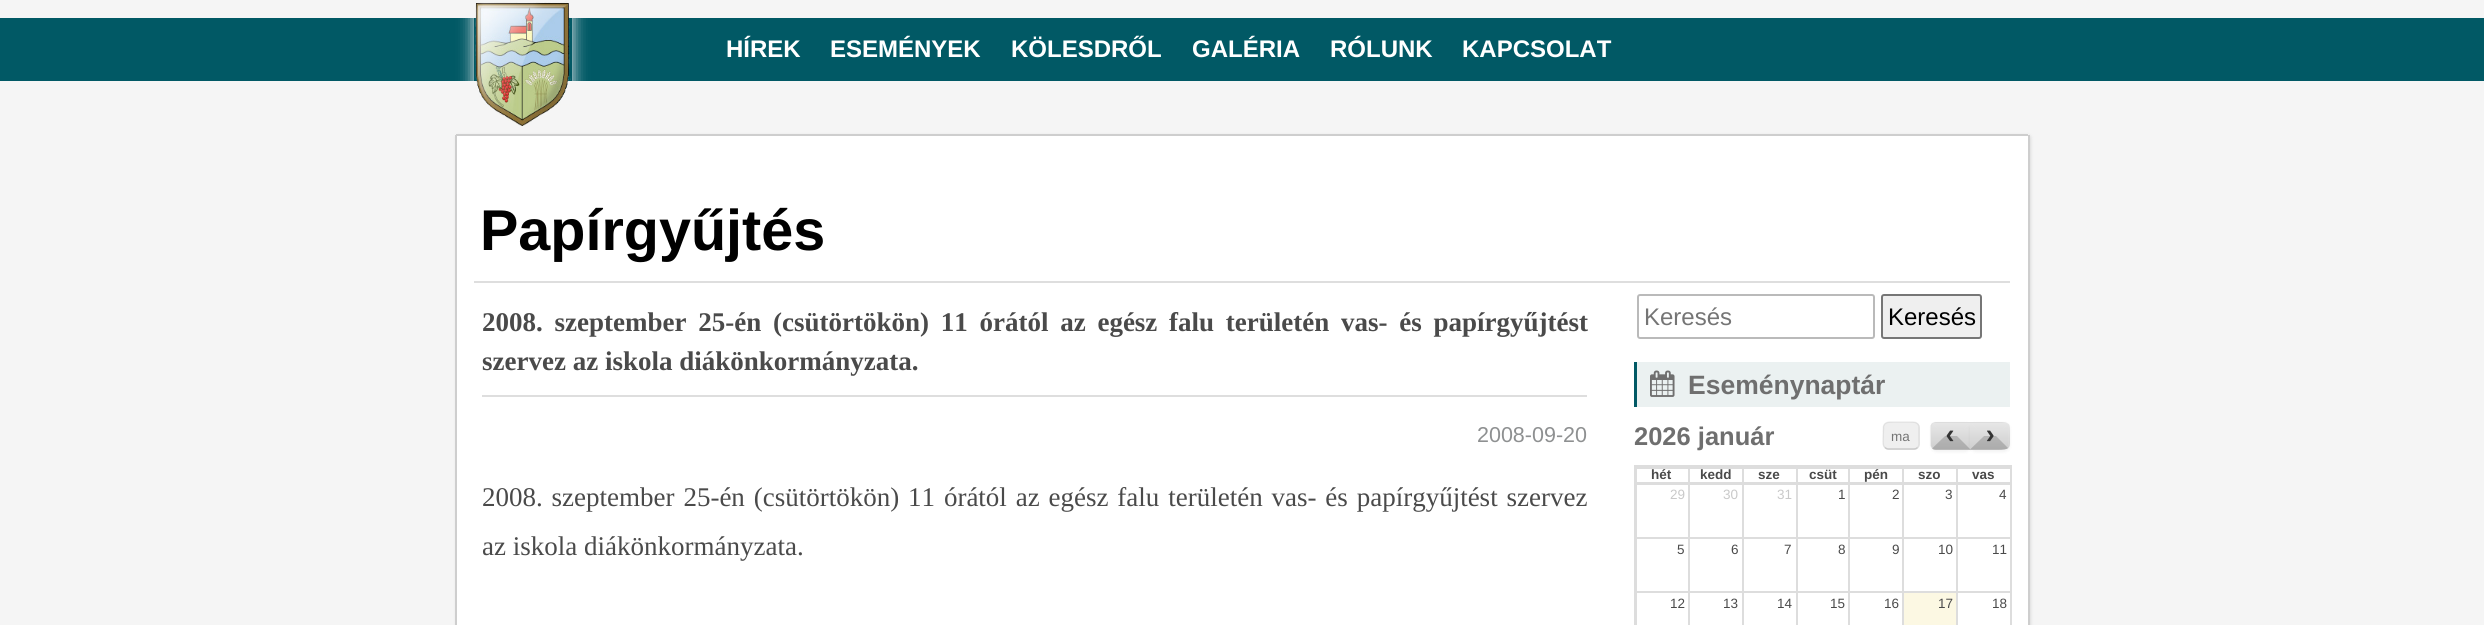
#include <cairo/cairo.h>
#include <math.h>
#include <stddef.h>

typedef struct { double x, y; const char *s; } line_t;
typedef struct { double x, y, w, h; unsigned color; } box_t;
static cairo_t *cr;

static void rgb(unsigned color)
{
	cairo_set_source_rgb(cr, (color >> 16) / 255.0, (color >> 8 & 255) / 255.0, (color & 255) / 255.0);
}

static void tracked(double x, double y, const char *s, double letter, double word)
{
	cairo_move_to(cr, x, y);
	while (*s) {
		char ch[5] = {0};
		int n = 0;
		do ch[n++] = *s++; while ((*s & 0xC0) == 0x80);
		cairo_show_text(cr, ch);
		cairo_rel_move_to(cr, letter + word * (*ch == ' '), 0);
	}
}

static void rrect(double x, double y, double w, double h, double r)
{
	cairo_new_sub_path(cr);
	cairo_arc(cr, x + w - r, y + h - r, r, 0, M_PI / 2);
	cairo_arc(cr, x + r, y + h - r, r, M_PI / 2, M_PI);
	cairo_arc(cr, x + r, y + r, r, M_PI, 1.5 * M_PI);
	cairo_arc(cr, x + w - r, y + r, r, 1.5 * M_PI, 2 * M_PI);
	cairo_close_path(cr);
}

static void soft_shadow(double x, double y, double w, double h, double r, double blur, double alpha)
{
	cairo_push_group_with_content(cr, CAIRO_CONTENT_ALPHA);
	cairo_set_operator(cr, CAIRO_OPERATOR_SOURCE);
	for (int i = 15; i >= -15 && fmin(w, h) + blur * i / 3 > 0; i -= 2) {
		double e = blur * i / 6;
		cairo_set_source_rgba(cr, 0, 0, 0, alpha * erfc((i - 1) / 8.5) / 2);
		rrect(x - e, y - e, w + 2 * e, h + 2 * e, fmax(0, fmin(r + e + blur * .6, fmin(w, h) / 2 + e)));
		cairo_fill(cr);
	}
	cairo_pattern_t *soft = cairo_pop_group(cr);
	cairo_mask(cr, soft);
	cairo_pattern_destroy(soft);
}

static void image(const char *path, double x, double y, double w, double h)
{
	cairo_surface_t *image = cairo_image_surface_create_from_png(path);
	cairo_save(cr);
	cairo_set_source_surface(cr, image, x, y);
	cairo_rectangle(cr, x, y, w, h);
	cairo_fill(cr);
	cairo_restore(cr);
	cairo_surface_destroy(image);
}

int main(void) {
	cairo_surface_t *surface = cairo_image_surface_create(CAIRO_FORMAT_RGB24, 2484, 625);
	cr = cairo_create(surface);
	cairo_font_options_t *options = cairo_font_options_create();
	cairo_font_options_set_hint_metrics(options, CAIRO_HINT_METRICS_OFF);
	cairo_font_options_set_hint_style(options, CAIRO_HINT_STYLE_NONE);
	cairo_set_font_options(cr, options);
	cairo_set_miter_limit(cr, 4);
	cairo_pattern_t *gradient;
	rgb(0xf5f5f5);
	cairo_paint(cr);
	rgb(0x015965);
	cairo_rectangle(cr, 0, 18, 2484, 63);
	cairo_fill(cr);
	cairo_save(cr);
	cairo_set_fill_rule(cr, CAIRO_FILL_RULE_EVEN_ODD);
	cairo_new_path(cr);
	cairo_move_to(cr, 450, 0);
	cairo_line_to(cr, 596, 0);
	cairo_line_to(cr, 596, 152);
	cairo_line_to(cr, 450, 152);
	cairo_close_path(cr);
	cairo_move_to(cr, 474, 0);
	cairo_line_to(cr, 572, 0);
	cairo_line_to(cr, 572, 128);
	cairo_line_to(cr, 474, 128);
	cairo_close_path(cr);
	cairo_clip(cr);
	rgb(0xf5f5f5);
	soft_shadow(474, 0, 98, 128, 0, 7.5, 1);
	cairo_restore(cr);
	image("img/1.png", 475, 0, 96, 126);
	rgb(0xdddddd);
	soft_shadow(456, 135, 1575, 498, 3, 1.5, 1);
	rgb(0xffffff);
	cairo_new_path(cr);
	cairo_move_to(cr, 458, 134);
	cairo_line_to(cr, 2027, 134);
	cairo_curve_to(cr, 2028.5, 134, 2030, 135.5, 2030, 137);
	cairo_line_to(cr, 2030, 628);
	cairo_line_to(cr, 455, 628);
	cairo_line_to(cr, 455, 137);
	cairo_curve_to(cr, 455, 135.5, 456.5, 134, 458, 134);
	cairo_close_path(cr);
	cairo_fill(cr);
	{
		static const box_t items[] = {
			{456, 134, 1572, 2, 0xcecece},
			{2028, 135, 2, 490, 0xcecece},
			{455, 135, 2, 490, 0xcecece},
			{474, 281, 1536, 2, 0xdedede},
			{482, 395, 1105, 2, 0xdedede},
		};
		for (size_t i = 0; i < sizeof items / sizeof *items; i++) {
			rgb(items[i].color);
			cairo_rectangle(cr, items[i].x, items[i].y, items[i].w, items[i].h);
			cairo_fill(cr);
		}
	}
	rrect(1638, 295, 236, 43, 2);
	rgb(0xbababa);
	cairo_stroke(cr);
	rgb(0xefefef);
	rrect(1882, 295, 99, 43, 2);
	cairo_fill_preserve(cr);
	rgb(0x767676);
	cairo_stroke(cr);
	rgb(0xebf1f1);
	cairo_rectangle(cr, 1637, 362, 373, 45);
	cairo_fill(cr);
	rgb(0x015965);
	cairo_rectangle(cr, 1634, 362, 3, 45);
	cairo_fill(cr);
	image("img/2.png", 1650, 370, 25, 27);
	rgb(0xefefef);
	rrect(1883, 422, 37, 28, 6);
	cairo_fill(cr);
	cairo_new_path(cr);
	cairo_move_to(cr, 1917.5, 447.5);
	cairo_curve_to(cr, 1916.5, 448.5, 1915.5, 449, 1914, 449);
	cairo_line_to(cr, 1888.5, 449);
	cairo_curve_to(cr, 1887, 449, 1886, 448.5, 1885, 447.5);
	cairo_set_source_rgba(cr, 0.349, 0.349, 0.349, 0.25);
	cairo_set_line_width(cr, 1.5);
	cairo_stroke(cr);
	cairo_new_path(cr);
	cairo_move_to(cr, 1885, 447.5);
	cairo_curve_to(cr, 1883, 446, 1883, 443.5, 1883, 441);
	cairo_line_to(cr, 1883.5, 426.5);
	cairo_curve_to(cr, 1884.5, 422, 1889, 422, 1893, 422);
	cairo_line_to(cr, 1910, 422);
	cairo_curve_to(cr, 1913.5, 422, 1918, 422, 1919, 426.5);
	cairo_line_to(cr, 1919, 441);
	cairo_curve_to(cr, 1919, 443.5, 1919.5, 446, 1917.5, 447.5);
	cairo_set_source_rgba(cr, 0.349, 0.349, 0.349, 0.1);
	cairo_stroke(cr);
	rgb(0x000000);
	soft_shadow(1931, 423, 40, 29, 6, 1.5, 0.05);
	rgb(0xf5f5f5);
	cairo_new_path(cr);
	cairo_move_to(cr, 1937, 422);
	cairo_line_to(cr, 1971, 422);
	cairo_line_to(cr, 1971, 450);
	cairo_line_to(cr, 1937, 450);
	cairo_curve_to(cr, 1933.5, 450, 1931, 447.5, 1931, 444);
	cairo_line_to(cr, 1931, 428);
	cairo_curve_to(cr, 1931, 424.5, 1933.5, 422, 1937, 422);
	cairo_close_path(cr);
	cairo_fill(cr);
	cairo_save(cr);
	cairo_new_path(cr);
	cairo_move_to(cr, 1937, 422);
	cairo_line_to(cr, 1971, 422);
	cairo_line_to(cr, 1971, 450);
	cairo_line_to(cr, 1937, 450);
	cairo_curve_to(cr, 1933.5, 450, 1931, 447.5, 1931, 444);
	cairo_line_to(cr, 1931, 428);
	cairo_curve_to(cr, 1931, 424.5, 1933.5, 422, 1937, 422);
	cairo_close_path(cr);
	cairo_clip(cr);
	gradient = cairo_pattern_create_linear(1951, 423, 1951, 449);
	cairo_pattern_add_color_stop_rgba(gradient, 0, 1, 1, 1, 1);
	cairo_pattern_add_color_stop_rgba(gradient, 1, 0.902, 0.902, 0.902, 1);
	cairo_set_source(cr, gradient);
	cairo_pattern_destroy(gradient);
	cairo_rectangle(cr, 1931, 423, 39, 26);
	cairo_fill(cr);
	cairo_restore(cr);
	cairo_set_source_rgba(cr, 0, 0, 0, 0.1);
	cairo_new_path(cr);
	cairo_move_to(cr, 1936, 422);
	cairo_curve_to(cr, 1934.5, 422, 1933.5, 422.5, 1932, 423);
	cairo_line_to(cr, 1945, 436);
	cairo_line_to(cr, 1957, 436);
	cairo_line_to(cr, 1970.5, 422);
	cairo_close_path(cr);
	cairo_fill(cr);
	cairo_new_path(cr);
	cairo_move_to(cr, 1970.5, 422);
	cairo_line_to(cr, 1971, 422);
	cairo_line_to(cr, 1971, 450);
	cairo_line_to(cr, 1957, 436);
	cairo_close_path(cr);
	cairo_fill(cr);
	cairo_set_source_rgba(cr, 0, 0, 0, 0.25);
	cairo_new_path(cr);
	cairo_move_to(cr, 1971, 450);
	cairo_line_to(cr, 1936, 450);
	cairo_curve_to(cr, 1934.5, 450, 1933, 449.5, 1932, 448.5);
	cairo_line_to(cr, 1945, 436);
	cairo_line_to(cr, 1957, 436);
	cairo_close_path(cr);
	cairo_fill(cr);
	cairo_set_source_rgba(cr, 0, 0, 0, 0.1);
	cairo_new_path(cr);
	cairo_move_to(cr, 1930.5, 425.5);
	cairo_line_to(cr, 1932, 423);
	cairo_line_to(cr, 1945, 436);
	cairo_line_to(cr, 1932, 448.5);
	cairo_line_to(cr, 1930.5, 446);
	cairo_close_path(cr);
	cairo_fill(cr);
	rgb(0x000000);
	soft_shadow(1970, 423, 40, 29, 6, 1.5, 0.05);
	rgb(0xf5f5f5);
	cairo_new_path(cr);
	cairo_move_to(cr, 1970, 422);
	cairo_line_to(cr, 2004, 422);
	cairo_curve_to(cr, 2007.5, 422, 2010, 424.5, 2010, 428);
	cairo_line_to(cr, 2010, 444);
	cairo_curve_to(cr, 2010, 447.5, 2007.5, 450, 2004, 450);
	cairo_line_to(cr, 1970, 450);
	cairo_close_path(cr);
	cairo_fill(cr);
	cairo_save(cr);
	cairo_new_path(cr);
	cairo_move_to(cr, 1970, 422);
	cairo_line_to(cr, 2004, 422);
	cairo_curve_to(cr, 2007.5, 422, 2010, 424.5, 2010, 428);
	cairo_line_to(cr, 2010, 444);
	cairo_curve_to(cr, 2010, 447.5, 2007.5, 450, 2004, 450);
	cairo_line_to(cr, 1970, 450);
	cairo_close_path(cr);
	cairo_clip(cr);
	gradient = cairo_pattern_create_linear(1990, 423, 1990, 449);
	cairo_pattern_add_color_stop_rgba(gradient, 0, 1, 1, 1, 1);
	cairo_pattern_add_color_stop_rgba(gradient, 1, 0.902, 0.902, 0.902, 1);
	cairo_set_source(cr, gradient);
	cairo_pattern_destroy(gradient);
	cairo_rectangle(cr, 1970, 423, 40, 26);
	cairo_fill(cr);
	cairo_restore(cr);
	cairo_set_source_rgba(cr, 1, 1, 1, 0.2);
	cairo_new_path(cr);
	cairo_move_to(cr, 1971, 424);
	cairo_line_to(cr, 1993.5, 424);
	cairo_curve_to(cr, 1997, 424, 2002, 423.5, 2006, 425);
	cairo_curve_to(cr, 2006.5, 425.5, 2007.5, 426, 2007.5, 427);
	cairo_curve_to(cr, 2008.5, 428, 2008.5, 446, 2007.5, 447.5);
	cairo_curve_to(cr, 2008.5, 446.5, 2009, 445.5, 2009, 444);
	cairo_line_to(cr, 2009, 428);
	cairo_curve_to(cr, 2009, 425, 2007, 423, 2004, 423);
	cairo_line_to(cr, 1971, 423);
	cairo_close_path(cr);
	cairo_fill(cr);
	cairo_set_source_rgba(cr, 0, 0, 0, 0.1);
	cairo_new_path(cr);
	cairo_move_to(cr, 1970, 422);
	cairo_line_to(cr, 1984, 436);
	cairo_line_to(cr, 1996, 436);
	cairo_line_to(cr, 2008, 423.5);
	cairo_curve_to(cr, 2006.5, 422.5, 2003.5, 422, 1998, 422);
	cairo_close_path(cr);
	cairo_fill(cr);
	cairo_new_path(cr);
	cairo_move_to(cr, 2010, 442);
	cairo_curve_to(cr, 2010, 445, 2009.5, 447, 2008, 448);
	cairo_line_to(cr, 1996, 436);
	cairo_line_to(cr, 2008, 423.5);
	cairo_curve_to(cr, 2009.5, 424.5, 2010, 426.5, 2010, 430);
	cairo_close_path(cr);
	cairo_fill(cr);
	cairo_set_source_rgba(cr, 0, 0, 0, 0.25);
	cairo_new_path(cr);
	cairo_move_to(cr, 1970, 450);
	cairo_line_to(cr, 1970, 449.5);
	cairo_line_to(cr, 1984, 436);
	cairo_line_to(cr, 1996, 436);
	cairo_line_to(cr, 2008, 448);
	cairo_curve_to(cr, 2006.5, 449.5, 2003.5, 450, 1998, 450);
	cairo_close_path(cr);
	cairo_fill(cr);
	cairo_set_source_rgba(cr, 0, 0, 0, 0.1);
	cairo_new_path(cr);
	cairo_move_to(cr, 1970, 422);
	cairo_line_to(cr, 1970, 449.5);
	cairo_line_to(cr, 1984, 436);
	cairo_close_path(cr);
	cairo_fill(cr);
	{
		static const box_t items[] = {
			{1634, 465, 378, 2, 0xdddddd},
			{1634, 482, 378, 1, 0xdddddd},
			{2010, 482, 2, 143, 0xdddddd},
			{2010, 465, 2, 18, 0xdddddd},
			{1634, 482, 1, 143, 0xdddddd},
			{1634, 465, 2, 18, 0xdddddd},
			{1956, 467, 56, 2, 0xdddddd},
			{1956, 467, 2, 16, 0xdddddd},
			{1902, 467, 56, 2, 0xdddddd},
			{1902, 467, 2, 16, 0xdddddd},
			{1848, 467, 56, 2, 0xdddddd},
			{1848, 467, 2, 16, 0xdddddd},
			{1796, 467, 54, 2, 0xdddddd},
			{1796, 467, 2, 16, 0xdddddd},
			{1742, 467, 55, 2, 0xdddddd},
			{1742, 467, 2, 16, 0xdddddd},
			{1688, 467, 55, 2, 0xdddddd},
			{1688, 467, 2, 16, 0xdddddd},
			{1635, 467, 54, 2, 0xdddddd},
			{1636, 467, 1, 16, 0xdddddd},
			{1956, 483, 54, 2, 0xdddddd},
			{1956, 537, 54, 2, 0xdddddd},
			{1956, 483, 2, 56, 0xdddddd},
			{1902, 483, 56, 2, 0xdddddd},
			{1902, 537, 56, 2, 0xdddddd},
			{1902, 483, 2, 56, 0xdddddd},
			{1848, 483, 56, 2, 0xdddddd},
			{1848, 537, 56, 2, 0xdddddd},
			{1848, 483, 2, 56, 0xdddddd},
			{1796, 483, 54, 2, 0xdddddd},
			{1796, 537, 54, 2, 0xdddddd},
			{1796, 483, 2, 56, 0xdddddd},
			{1742, 483, 55, 2, 0xdddddd},
			{1742, 537, 55, 2, 0xdddddd},
			{1742, 483, 2, 56, 0xdddddd},
			{1688, 483, 55, 2, 0xdddddd},
			{1688, 537, 55, 2, 0xdddddd},
			{1688, 483, 2, 56, 0xdddddd},
			{1635, 483, 54, 2, 0xdddddd},
			{1635, 537, 54, 2, 0xdddddd},
			{1635, 483, 2, 56, 0xdddddd},
			{1956, 591, 54, 2, 0xdddddd},
			{1956, 537, 2, 56, 0xdddddd},
			{1902, 591, 56, 2, 0xdddddd},
			{1902, 537, 2, 56, 0xdddddd},
			{1848, 591, 56, 2, 0xdddddd},
			{1848, 537, 2, 56, 0xdddddd},
			{1796, 591, 54, 2, 0xdddddd},
			{1796, 537, 2, 56, 0xdddddd},
			{1742, 591, 55, 2, 0xdddddd},
			{1742, 537, 2, 56, 0xdddddd},
			{1688, 591, 55, 2, 0xdddddd},
			{1688, 537, 2, 56, 0xdddddd},
			{1635, 591, 54, 2, 0xdddddd},
			{1635, 537, 2, 88, 0xdddddd},
			{1688, 591, 2, 34, 0xdddddd},
			{1742, 591, 2, 34, 0xdddddd},
			{1796, 591, 2, 34, 0xdddddd},
			{1848, 591, 2, 34, 0xdddddd},
			{1904, 593, 52, 32, 0xfcf8e3},
			{1902, 591, 2, 34, 0xdddddd},
			{1956, 591, 2, 34, 0xdddddd},
		};
		for (size_t i = 0; i < sizeof items / sizeof *items; i++) {
			rgb(items[i].color);
			cairo_rectangle(cr, items[i].x, items[i].y, items[i].w, items[i].h);
			cairo_fill(cr);
		}
	}
	cairo_select_font_face(cr, "Liberation Sans", CAIRO_FONT_SLANT_NORMAL, CAIRO_FONT_WEIGHT_BOLD);
	cairo_set_font_size(cr, 24);
	rgb(0xffffff);
	{
		static const line_t items[] = {
			{726, 57, "HÍREK"},
			{830, 57, "ESEMÉNYEK"},
			{1011, 57, "KÖLESDRŐL"},
			{1192, 57, "GALÉRIA"},
			{1330, 57, "RÓLUNK"},
			{1462, 57, "KAPCSOLAT"},
		};
		for (size_t i = 0; i < sizeof items / sizeof *items; i++) {
			cairo_move_to(cr, items[i].x, items[i].y);
			cairo_show_text(cr, items[i].s);
		}
	}
	cairo_set_font_size(cr, 57.5);
	rgb(0x000000);
	cairo_move_to(cr, 480, 250);
	cairo_show_text(cr, "Papírgyűjtés");
	cairo_select_font_face(cr, "Liberation Serif", CAIRO_FONT_SLANT_NORMAL, CAIRO_FONT_WEIGHT_BOLD);
	cairo_set_font_size(cr, 27);
	rgb(0x4a4a4a);
	tracked(482, 331, "2008. szeptember 25-én (csütörtökön) 11 órától az egész falu területén vas- és papírgyűjtést", 0, 5);
	cairo_move_to(cr, 482, 370);
	cairo_show_text(cr, "szervez az iskola diákönkormányzata.");
	cairo_select_font_face(cr, "Liberation Sans", CAIRO_FONT_SLANT_NORMAL, CAIRO_FONT_WEIGHT_NORMAL);
	cairo_set_font_size(cr, 21.5);
	rgb(0x8e9091);
	cairo_move_to(cr, 1477, 442);
	cairo_show_text(cr, "2008-09-20");
	cairo_select_font_face(cr, "Liberation Serif", CAIRO_FONT_SLANT_NORMAL, CAIRO_FONT_WEIGHT_NORMAL);
	cairo_set_font_size(cr, 27);
	rgb(0x4a4a4a);
	tracked(482, 506, "2008. szeptember 25-én (csütörtökön) 11 órától az egész falu területén vas- és papírgyűjtést szervez", 0, 2.1);
	cairo_move_to(cr, 482, 555);
	cairo_show_text(cr, "az iskola diákönkormányzata.");
	cairo_select_font_face(cr, "Liberation Sans", CAIRO_FONT_SLANT_NORMAL, CAIRO_FONT_WEIGHT_NORMAL);
	cairo_set_font_size(cr, 24);
	rgb(0x757575);
	cairo_move_to(cr, 1644, 325);
	cairo_show_text(cr, "Keresés");
	rgb(0x000000);
	cairo_move_to(cr, 1888, 325);
	cairo_show_text(cr, "Keresés");
	cairo_select_font_face(cr, "Liberation Sans", CAIRO_FONT_SLANT_NORMAL, CAIRO_FONT_WEIGHT_BOLD);
	cairo_set_font_size(cr, 26.5);
	rgb(0x6f6f6f);
	cairo_move_to(cr, 1688, 394);
	cairo_show_text(cr, "Eseménynaptár");
	cairo_set_font_size(cr, 25.5);
	cairo_move_to(cr, 1634, 445);
	cairo_show_text(cr, "2026 január");
	cairo_select_font_face(cr, "Liberation Sans", CAIRO_FONT_SLANT_NORMAL, CAIRO_FONT_WEIGHT_NORMAL);
	cairo_set_font_size(cr, 13.5);
	rgb(0x757575);
	cairo_move_to(cr, 1891, 441);
	cairo_show_text(cr, "ma");
	cairo_select_font_face(cr, "Liberation Mono", CAIRO_FONT_SLANT_NORMAL, CAIRO_FONT_WEIGHT_BOLD);
	cairo_set_font_size(cr, 27);
	rgb(0x333333);
	cairo_move_to(cr, 1942, 443);
	cairo_show_text(cr, "‹");
	cairo_move_to(cr, 1982, 443);
	cairo_show_text(cr, "›");
	cairo_select_font_face(cr, "Liberation Sans", CAIRO_FONT_SLANT_NORMAL, CAIRO_FONT_WEIGHT_BOLD);
	cairo_set_font_size(cr, 13.5);
	rgb(0x4a4a4a);
	{
		static const line_t items[] = {
			{1651, 479, "hét"},
			{1700, 479, "kedd"},
			{1758, 479, "sze"},
			{1809, 479, "csüt"},
			{1864, 479, "pén"},
			{1918, 479, "szo"},
			{1972, 479, "vas"},
		};
		for (size_t i = 0; i < sizeof items / sizeof *items; i++) {
			cairo_move_to(cr, items[i].x, items[i].y);
			cairo_show_text(cr, items[i].s);
		}
	}
	cairo_select_font_face(cr, "Liberation Sans", CAIRO_FONT_SLANT_NORMAL, CAIRO_FONT_WEIGHT_NORMAL);
	rgb(0xc9c9c9);
	{
		static const line_t items[] = {
			{1670, 499, "29"},
			{1723, 499, "30"},
			{1777, 499, "31"},
		};
		for (size_t i = 0; i < sizeof items / sizeof *items; i++) {
			cairo_move_to(cr, items[i].x, items[i].y);
			cairo_show_text(cr, items[i].s);
		}
	}
	rgb(0x4a4a4a);
	{
		static const line_t items[] = {
			{1838, 499, "1"},
			{1892, 499, "2"},
			{1945, 499, "3"},
			{1999, 499, "4"},
			{1677, 554, "5"},
			{1731, 554, "6"},
			{1784, 554, "7"},
			{1838, 554, "8"},
			{1892, 554, "9"},
			{1938, 554, "10"},
			{1992, 554, "11"},
			{1670, 608, "12"},
			{1723, 608, "13"},
			{1777, 608, "14"},
			{1830, 608, "15"},
			{1884, 608, "16"},
			{1938, 608, "17"},
			{1992, 608, "18"},
		};
		for (size_t i = 0; i < sizeof items / sizeof *items; i++) {
			cairo_move_to(cr, items[i].x, items[i].y);
			cairo_show_text(cr, items[i].s);
		}
	}
	cairo_surface_write_to_png(surface, "page.png");
	cairo_font_options_destroy(options);
	cairo_destroy(cr);
	cairo_surface_destroy(surface);
	return 0;
}
